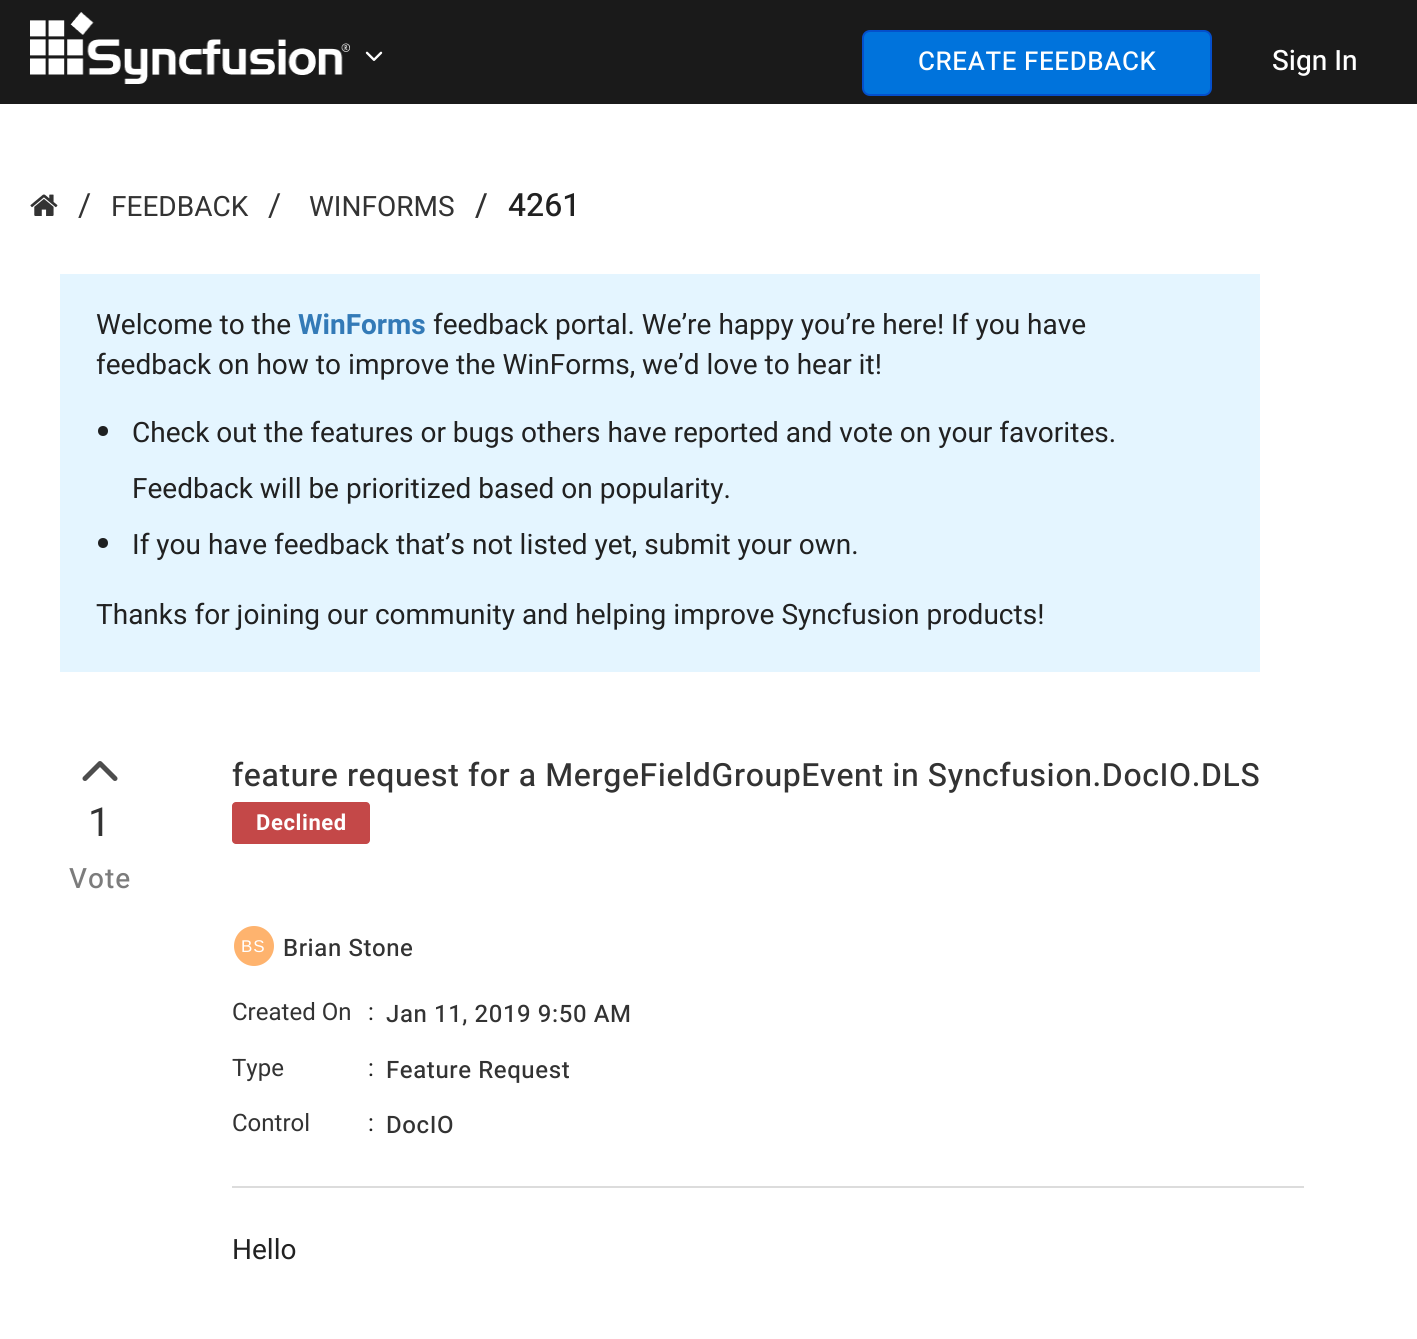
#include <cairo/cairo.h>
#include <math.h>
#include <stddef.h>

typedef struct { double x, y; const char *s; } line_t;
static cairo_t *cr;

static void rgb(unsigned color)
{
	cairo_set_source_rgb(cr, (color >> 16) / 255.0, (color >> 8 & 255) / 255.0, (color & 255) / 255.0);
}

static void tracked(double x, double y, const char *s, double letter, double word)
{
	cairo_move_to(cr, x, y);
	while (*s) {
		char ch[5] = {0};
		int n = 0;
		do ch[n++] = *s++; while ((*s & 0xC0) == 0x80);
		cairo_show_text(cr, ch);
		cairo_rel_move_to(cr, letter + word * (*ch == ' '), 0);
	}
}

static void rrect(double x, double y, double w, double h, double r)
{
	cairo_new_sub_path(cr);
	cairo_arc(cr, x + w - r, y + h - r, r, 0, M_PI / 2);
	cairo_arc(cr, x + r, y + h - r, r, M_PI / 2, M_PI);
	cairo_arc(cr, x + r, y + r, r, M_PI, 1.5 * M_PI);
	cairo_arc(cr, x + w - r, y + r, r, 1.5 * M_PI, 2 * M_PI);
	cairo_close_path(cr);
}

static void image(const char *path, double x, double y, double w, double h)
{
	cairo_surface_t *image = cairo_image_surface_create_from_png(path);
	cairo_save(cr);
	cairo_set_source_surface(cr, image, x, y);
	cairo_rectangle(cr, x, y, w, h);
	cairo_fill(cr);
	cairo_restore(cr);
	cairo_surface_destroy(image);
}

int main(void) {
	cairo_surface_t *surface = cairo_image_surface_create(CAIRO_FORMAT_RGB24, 1417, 1339);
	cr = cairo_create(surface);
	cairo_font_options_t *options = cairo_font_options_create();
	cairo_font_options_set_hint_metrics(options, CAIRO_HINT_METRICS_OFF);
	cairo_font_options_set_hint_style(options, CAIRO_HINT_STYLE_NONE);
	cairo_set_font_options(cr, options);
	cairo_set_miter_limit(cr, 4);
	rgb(0xffffff);
	cairo_paint(cr);
	rgb(0x1a1a1a);
	cairo_rectangle(cr, 0, 0, 1417, 104);
	cairo_fill(cr);
	image("img/1.png", 30, 12, 320, 72);
	image("img/2.png", 365, 51, 18, 10);
	rgb(0x0073dc);
	rrect(863, 31, 348, 64, 7);
	cairo_fill_preserve(cr);
	rgb(0x0450cc);
	cairo_stroke(cr);
	image("img/3.png", 30, 194, 28, 22);
	rgb(0xe4f5ff);
	cairo_rectangle(cr, 60, 274, 1200, 398);
	cairo_fill(cr);
	rgb(0x1e2021);
	cairo_arc(cr, 103, 431, 5, 0, 2 * M_PI);
	cairo_fill(cr);
	cairo_arc(cr, 103, 543, 5, 0, 2 * M_PI);
	cairo_fill(cr);
	image("img/4.png", 82, 761, 36, 20);
	rgb(0xdcdcdc);
	cairo_rectangle(cr, 232, 1186, 1072, 2);
	cairo_fill(cr);
	rgb(0xc44848);
	rrect(232, 802, 138, 42, 4);
	cairo_fill(cr);
	rgb(0xfeb36e);
	cairo_arc(cr, 254, 946, 20, 0, 2 * M_PI);
	cairo_fill(cr);
	cairo_select_font_face(cr, "Heebo Medium", CAIRO_FONT_SLANT_NORMAL, CAIRO_FONT_WEIGHT_NORMAL);
	cairo_set_font_size(cr, 26);
	rgb(0xffffff);
	tracked(918, 70, "CREATE FEEDBACK", 0.6, 0);
	cairo_set_font_size(cr, 28);
	cairo_move_to(cr, 1272, 70);
	cairo_show_text(cr, "Sign In");
	cairo_select_font_face(cr, "Heebo", CAIRO_FONT_SLANT_NORMAL, CAIRO_FONT_WEIGHT_NORMAL);
	cairo_set_font_size(cr, 32);
	rgb(0x333333);
	cairo_move_to(cr, 78, 216);
	cairo_show_text(cr, "/");
	cairo_set_font_size(cr, 28);
	cairo_move_to(cr, 111, 216);
	cairo_show_text(cr, "FEEDBACK");
	cairo_set_font_size(cr, 32);
	cairo_move_to(cr, 268, 216);
	cairo_show_text(cr, "/");
	cairo_set_font_size(cr, 28);
	cairo_move_to(cr, 309, 216);
	cairo_show_text(cr, "WINFORMS");
	cairo_select_font_face(cr, "Heebo Medium", CAIRO_FONT_SLANT_NORMAL, CAIRO_FONT_WEIGHT_NORMAL);
	cairo_set_font_size(cr, 32);
	cairo_move_to(cr, 475, 216);
	cairo_show_text(cr, "/");
	rgb(0x212121);
	cairo_move_to(cr, 508, 216);
	cairo_show_text(cr, "4261");
	cairo_select_font_face(cr, "Heebo", CAIRO_FONT_SLANT_NORMAL, CAIRO_FONT_WEIGHT_NORMAL);
	cairo_set_font_size(cr, 28);
	cairo_move_to(cr, 96, 334);
	cairo_show_text(cr, "Welcome to the");
	cairo_select_font_face(cr, "Heebo", CAIRO_FONT_SLANT_NORMAL, CAIRO_FONT_WEIGHT_BOLD);
	rgb(0x337ab7);
	cairo_move_to(cr, 298, 334);
	cairo_show_text(cr, "WinForms");
	cairo_select_font_face(cr, "Heebo", CAIRO_FONT_SLANT_NORMAL, CAIRO_FONT_WEIGHT_NORMAL);
	rgb(0x212121);
	{
		static const line_t items[] = {
			{433, 334, "feedback portal. We’re happy you’re here! If you have"},
			{96, 374, "feedback on how to improve the WinForms, we’d love to hear it!"},
			{132, 442, "Check out the features or bugs others have reported and vote on your favorites."},
			{132, 498, "Feedback will be prioritized based on popularity."},
			{132, 554, "If you have feedback that’s not listed yet, submit your own."},
			{96, 624, "Thanks for joining our community and helping improve Syncfusion products!"},
		};
		for (size_t i = 0; i < sizeof items / sizeof *items; i++) {
			cairo_move_to(cr, items[i].x, items[i].y);
			cairo_show_text(cr, items[i].s);
		}
	}
	cairo_set_font_size(cr, 40);
	rgb(0x333333);
	tracked(88, 836, "1", 1, 0);
	cairo_select_font_face(cr, "Heebo Medium", CAIRO_FONT_SLANT_NORMAL, CAIRO_FONT_WEIGHT_NORMAL);
	cairo_set_font_size(cr, 28);
	rgb(0x7c7c7c);
	tracked(69, 888, "Vote", 1, 0);
	cairo_set_font_size(cr, 32);
	rgb(0x333333);
	tracked(232, 786, "feature request for a MergeFieldGroupEvent in Syncfusion.DocIO.DLS", 0.6, 0);
	cairo_select_font_face(cr, "Heebo", CAIRO_FONT_SLANT_NORMAL, CAIRO_FONT_WEIGHT_BOLD);
	cairo_set_font_size(cr, 22);
	rgb(0xffffff);
	tracked(256, 830, "Declined", 0.6, 0);
	cairo_select_font_face(cr, "Liberation Sans", CAIRO_FONT_SLANT_NORMAL, CAIRO_FONT_WEIGHT_NORMAL);
	cairo_set_font_size(cr, 17);
	tracked(241, 952, "BS", 1, 0);
	cairo_select_font_face(cr, "Heebo Medium", CAIRO_FONT_SLANT_NORMAL, CAIRO_FONT_WEIGHT_NORMAL);
	cairo_set_font_size(cr, 24);
	rgb(0x333333);
	tracked(283, 956, "Brian Stone", 0.6, 0);
	cairo_select_font_face(cr, "Heebo", CAIRO_FONT_SLANT_NORMAL, CAIRO_FONT_WEIGHT_NORMAL);
	cairo_move_to(cr, 232, 1020);
	cairo_show_text(cr, "Created On");
	rgb(0x212121);
	cairo_move_to(cr, 368, 1020);
	cairo_show_text(cr, ":");
	cairo_select_font_face(cr, "Heebo Medium", CAIRO_FONT_SLANT_NORMAL, CAIRO_FONT_WEIGHT_NORMAL);
	rgb(0x333333);
	tracked(386, 1022, "Jan 11, 2019 9:50 AM", 0.6, 0);
	cairo_select_font_face(cr, "Heebo", CAIRO_FONT_SLANT_NORMAL, CAIRO_FONT_WEIGHT_NORMAL);
	cairo_move_to(cr, 232, 1076);
	cairo_show_text(cr, "Type");
	rgb(0x212121);
	cairo_move_to(cr, 368, 1076);
	cairo_show_text(cr, ":");
	cairo_select_font_face(cr, "Heebo Medium", CAIRO_FONT_SLANT_NORMAL, CAIRO_FONT_WEIGHT_NORMAL);
	rgb(0x333333);
	tracked(386, 1078, "Feature Request", 0.6, 0);
	cairo_select_font_face(cr, "Heebo", CAIRO_FONT_SLANT_NORMAL, CAIRO_FONT_WEIGHT_NORMAL);
	cairo_move_to(cr, 232, 1131);
	cairo_show_text(cr, "Control");
	rgb(0x212121);
	cairo_move_to(cr, 368, 1131);
	cairo_show_text(cr, ":");
	cairo_select_font_face(cr, "Heebo Medium", CAIRO_FONT_SLANT_NORMAL, CAIRO_FONT_WEIGHT_NORMAL);
	rgb(0x333333);
	tracked(386, 1133, "DocIO", 0.6, 0);
	cairo_select_font_face(cr, "Heebo", CAIRO_FONT_SLANT_NORMAL, CAIRO_FONT_WEIGHT_NORMAL);
	cairo_set_font_size(cr, 28);
	rgb(0x212121);
	cairo_move_to(cr, 232, 1259);
	cairo_show_text(cr, "Hello");
	cairo_surface_write_to_png(surface, "page.png");
	cairo_font_options_destroy(options);
	cairo_destroy(cr);
	cairo_surface_destroy(surface);
	return 0;
}
